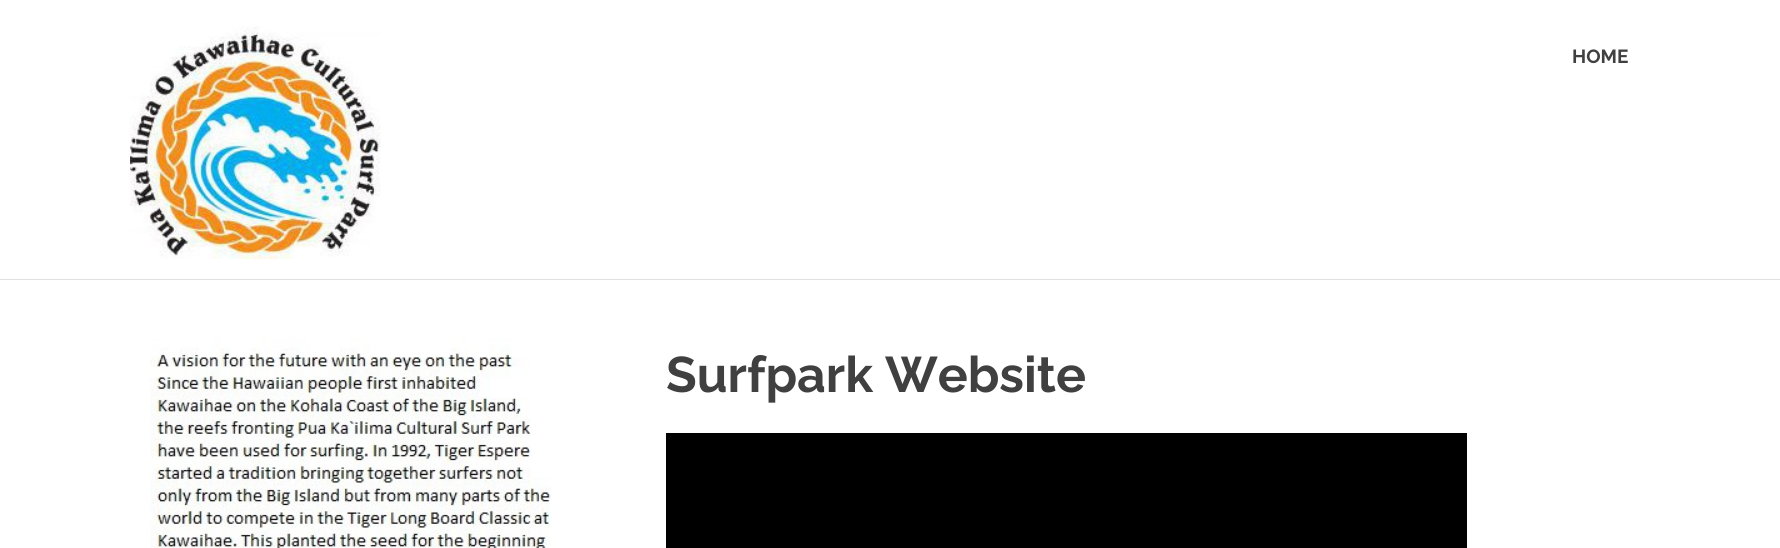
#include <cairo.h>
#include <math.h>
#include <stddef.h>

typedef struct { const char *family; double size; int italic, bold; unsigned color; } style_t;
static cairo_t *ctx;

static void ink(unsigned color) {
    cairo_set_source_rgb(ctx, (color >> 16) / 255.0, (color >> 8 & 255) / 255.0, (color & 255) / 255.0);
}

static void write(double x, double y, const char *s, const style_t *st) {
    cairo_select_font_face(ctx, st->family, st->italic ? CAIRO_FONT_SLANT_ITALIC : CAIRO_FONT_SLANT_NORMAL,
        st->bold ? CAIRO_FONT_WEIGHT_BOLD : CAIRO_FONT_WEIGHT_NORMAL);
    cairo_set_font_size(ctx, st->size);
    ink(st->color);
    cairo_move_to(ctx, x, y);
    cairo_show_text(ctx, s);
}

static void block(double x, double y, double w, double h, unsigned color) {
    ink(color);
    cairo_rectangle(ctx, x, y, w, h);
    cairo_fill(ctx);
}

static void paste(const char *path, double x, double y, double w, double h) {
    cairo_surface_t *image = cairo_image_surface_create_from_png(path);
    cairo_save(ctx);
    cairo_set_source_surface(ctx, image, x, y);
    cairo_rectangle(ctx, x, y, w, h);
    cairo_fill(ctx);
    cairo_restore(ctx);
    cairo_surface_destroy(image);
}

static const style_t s1 = {"Raleway", 19, 0, 1, 0x404040};
static const style_t s2 = {"Raleway", 50, 0, 1, 0x404040};

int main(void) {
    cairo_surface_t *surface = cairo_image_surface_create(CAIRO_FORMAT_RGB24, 1780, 548);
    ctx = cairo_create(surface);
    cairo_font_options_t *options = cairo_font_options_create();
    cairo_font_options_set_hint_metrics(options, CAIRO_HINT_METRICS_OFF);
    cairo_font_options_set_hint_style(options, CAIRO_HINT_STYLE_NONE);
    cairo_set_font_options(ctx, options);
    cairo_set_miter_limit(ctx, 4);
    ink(0xffffff);
    cairo_paint(ctx);
    block(0, 279, 1780, 1, 0xe0e0e0);
    paste("pic1.png", 130, 26, 251, 233);
    write(1572, 63, "HOME", &s1);
    paste("pic2.png", 150, 338, 401, 210);
    write(666, 392, "Surfpark Website", &s2);
    block(666, 433, 801, 115, 0x000000);
    cairo_surface_write_to_png(surface, "screenshot.png");
    cairo_font_options_destroy(options);
    cairo_destroy(ctx);
    cairo_surface_destroy(surface);
    return 0;
}
